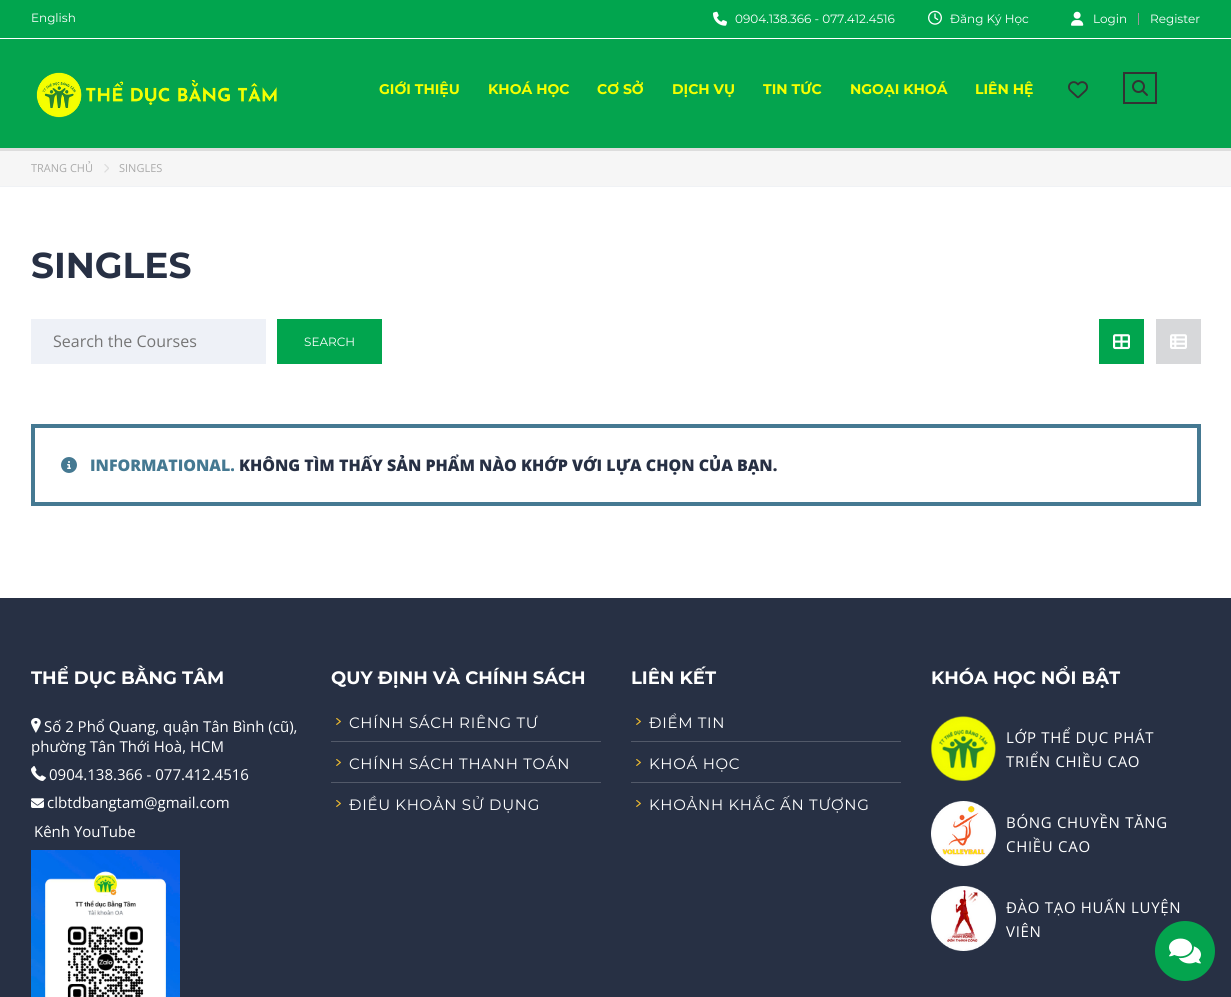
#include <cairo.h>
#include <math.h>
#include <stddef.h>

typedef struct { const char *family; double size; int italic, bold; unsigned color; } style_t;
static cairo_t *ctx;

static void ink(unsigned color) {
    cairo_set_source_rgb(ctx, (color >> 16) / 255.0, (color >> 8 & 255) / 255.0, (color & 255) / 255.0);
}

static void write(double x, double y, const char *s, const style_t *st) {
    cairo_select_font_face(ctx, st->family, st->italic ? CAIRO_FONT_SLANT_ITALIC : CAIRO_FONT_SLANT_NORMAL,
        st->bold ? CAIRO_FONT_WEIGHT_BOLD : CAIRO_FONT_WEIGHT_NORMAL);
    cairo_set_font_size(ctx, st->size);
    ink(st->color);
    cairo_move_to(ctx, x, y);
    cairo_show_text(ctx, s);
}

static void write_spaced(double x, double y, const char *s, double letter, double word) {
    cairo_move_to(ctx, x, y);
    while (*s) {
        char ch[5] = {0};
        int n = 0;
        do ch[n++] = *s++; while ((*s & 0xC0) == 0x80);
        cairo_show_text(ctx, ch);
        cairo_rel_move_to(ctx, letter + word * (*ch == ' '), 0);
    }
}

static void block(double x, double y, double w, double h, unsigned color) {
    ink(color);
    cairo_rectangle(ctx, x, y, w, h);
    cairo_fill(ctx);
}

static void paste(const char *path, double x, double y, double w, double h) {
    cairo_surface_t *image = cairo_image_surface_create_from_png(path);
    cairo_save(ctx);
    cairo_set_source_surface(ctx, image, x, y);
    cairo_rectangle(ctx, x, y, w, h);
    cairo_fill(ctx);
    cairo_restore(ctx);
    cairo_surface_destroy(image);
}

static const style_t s1 = {"Montserrat", 12, 0, 0, 0xffffff};
static const style_t s2 = {"Montserrat", 14, 0, 1, 0xf5ff00};
static const style_t s3 = {"Open Sans", 11, 0, 0, 0xaaaaaa};
static const style_t s4 = {"Montserrat", 36, 0, 1, 0x273044};
static const style_t s5 = {"Open Sans", 16, 0, 0, 0x757575};
static const style_t s6 = {"Open Sans ExtraBold", 16, 0, 0, 0x457992};
static const style_t s7 = {"Open Sans ExtraBold", 16, 0, 0, 0x273044};
static const style_t s8 = {"Montserrat", 18, 0, 1, 0xffffff};
static const style_t s9 = {"Open Sans", 15, 0, 0, 0xffffff};

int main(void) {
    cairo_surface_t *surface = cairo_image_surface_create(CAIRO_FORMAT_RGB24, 1231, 997);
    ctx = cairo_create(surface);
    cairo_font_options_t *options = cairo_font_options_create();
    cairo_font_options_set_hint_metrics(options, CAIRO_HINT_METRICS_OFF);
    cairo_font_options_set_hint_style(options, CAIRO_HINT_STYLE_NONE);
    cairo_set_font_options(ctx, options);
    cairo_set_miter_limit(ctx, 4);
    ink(0xffffff);
    cairo_paint(ctx);
    block(0, 0, 1231, 38, 0x01a54e);
    write(31, 22, "English", &s1);
    paste("pic1.png", 713, 11, 14, 15);
    write(735, 23, "0904.138.366 - 077.412.4516", &s1);
    paste("pic2.png", 928, 10, 14, 15);
    write(950, 23, "Đăng Ký Học", &s1);
    paste("pic3.png", 1071, 11, 13, 15);
    write(1093, 23, "Login", &s1);
    block(1138, 13, 1, 12, 0x9a9a9a);
    write(1150, 23, "Register", &s1);
    block(0, 39, 1231, 109, 0x04a44e);
    paste("pic4.png", 36, 72, 241, 46);
    write(379, 94, "GIỚI THIỆU", &s2);
    write(488, 94, "KHOÁ HỌC", &s2);
    write(597, 94, "CƠ SỞ", &s2);
    write(672, 94, "DỊCH VỤ", &s2);
    write(763, 94, "TIN TỨC", &s2);
    write(850, 94, "NGOẠI KHOÁ", &s2);
    write(975, 94, "LIÊN HỆ", &s2);
    paste("pic5.png", 1068, 81, 20, 18);
    cairo_rectangle(ctx, 1124, 73, 32, 30);
    ink(0x333333);
    cairo_stroke(ctx);
    paste("pic6.png", 1132, 80, 16, 16);
    block(0, 148, 1231, 3, 0xdddddd);
    block(0, 151, 1231, 35, 0xf6f6f6);
    block(0, 186, 1231, 1, 0xf0f2f5);
    write(31, 172, "TRANG CHỦ", &s3);
    paste("pic7.png", 104, 164, 5, 9);
    write(119, 172, "SINGLES", &s3);
    write(31, 278, "SINGLES", &s4);
    block(31, 319, 235, 45, 0xeef1f7);
    write(53, 347, "Search the Courses", &s5);
    block(277, 319, 105, 45, 0x01a54e);
    write(304, 346, "SEARCH", &s1);
    block(1099, 319, 45, 45, 0x01a54e);
    paste("pic8.png", 1113, 334, 17, 16);
    block(1156, 319, 45, 45, 0xd7d8da);
    paste("pic9.png", 1170, 334, 17, 15);
    cairo_rectangle(ctx, 33, 426, 1166, 78);
    ink(0x457992);
    cairo_set_line_width(ctx, 4);
    cairo_stroke(ctx);
    paste("pic10.png", 61, 457, 16, 16);
    write(90, 471, "INFORMATIONAL.", &s6);
    write(239, 471, "KHÔNG TÌM THẤY SẢN PHẨM NÀO KHỚP VỚI LỰA CHỌN CỦA BẠN.", &s7);
    block(0, 598, 1231, 399, 0x273044);
    write(31, 684, "THỂ DỤC BẰNG TÂM", &s8);
    paste("pic11.png", 31, 717, 10, 16);
    write(44, 732, "Số 2 Phổ Quang, quận Tân Bình (cũ),", &s9);
    write(31, 752, "phường Tân Thới Hoà, HCM", &s9);
    paste("pic12.png", 31, 766, 15, 15);
    write(49, 780, "0904.138.366 - 077.412.4516", &s9);
    paste("pic13.png", 31, 798, 13, 10);
    write(47, 808, "clbtdbangtam@gmail.com", &s9);
    write(34, 837, "Kênh YouTube", &s9);
    paste("pic14.png", 31, 850, 149, 147);
    write(331, 684, "QUY ĐỊNH VÀ CHÍNH SÁCH", &s8);
    block(331, 741, 270, 1, 0x525969);
    paste("pic15.png", 336, 718, 5, 7);
    cairo_select_font_face(ctx, "Montserrat", CAIRO_FONT_SLANT_NORMAL, CAIRO_FONT_WEIGHT_NORMAL);
    cairo_set_font_size(ctx, 15);
    ink(0xffffff);
    write_spaced(349, 728, "CHÍNH SÁCH RIÊNG TƯ", 0.7, 0);
    block(331, 782, 270, 1, 0x525969);
    paste("pic15.png", 336, 759, 5, 7);
    ink(0xffffff);
    write_spaced(349, 769, "CHÍNH SÁCH THANH TOÁN", 0.7, 0);
    paste("pic15.png", 336, 800, 5, 7);
    write_spaced(349, 810, "ĐIỀU KHOẢN SỬ DỤNG", 0.7, 0);
    write(631, 684, "LIÊN KẾT", &s8);
    block(631, 741, 270, 1, 0x525969);
    paste("pic15.png", 636, 718, 5, 7);
    cairo_select_font_face(ctx, "Montserrat", CAIRO_FONT_SLANT_NORMAL, CAIRO_FONT_WEIGHT_NORMAL);
    cairo_set_font_size(ctx, 15);
    ink(0xffffff);
    write_spaced(649, 728, "ĐIỂM TIN", 0.7, 0);
    block(631, 782, 270, 1, 0x525969);
    paste("pic15.png", 636, 759, 5, 7);
    ink(0xffffff);
    write_spaced(649, 769, "KHOÁ HỌC", 0.7, 0);
    paste("pic15.png", 636, 800, 5, 7);
    write_spaced(649, 810, "KHOẢNH KHẮC ẤN TƯỢNG", 0.7, 0);
    write(931, 684, "KHÓA HỌC NỔI BẬT", &s8);
    paste("pic16.png", 931, 716, 65, 65);
    cairo_select_font_face(ctx, "Open Sans", CAIRO_FONT_SLANT_NORMAL, CAIRO_FONT_WEIGHT_NORMAL);
    cairo_set_font_size(ctx, 15);
    write_spaced(1006, 743, "LỚP THỂ DỤC PHÁT", 0.7, 0);
    write_spaced(1006, 767, "TRIỂN CHIỀU CAO", 0.7, 0);
    paste("pic17.png", 931, 801, 65, 65);
    write_spaced(1006, 828, "BÓNG CHUYỀN TĂNG", 0.7, 0);
    write_spaced(1006, 852, "CHIỀU CAO", 0.7, 0);
    paste("pic18.png", 931, 886, 65, 65);
    write_spaced(1006, 913, "ĐÀO TẠO HUẤN LUYỆN", 0.7, 0);
    write_spaced(1006, 937, "VIÊN", 0.7, 0);
    ink(0x04a44e);
    cairo_new_path(ctx);
    cairo_arc(ctx, 1185, 951, 30, 0, 2 * M_PI);
    cairo_fill(ctx);
    paste("pic19.png", 1169, 938, 32, 26);
    cairo_surface_write_to_png(surface, "screenshot.png");
    cairo_font_options_destroy(options);
    cairo_destroy(ctx);
    cairo_surface_destroy(surface);
    return 0;
}
